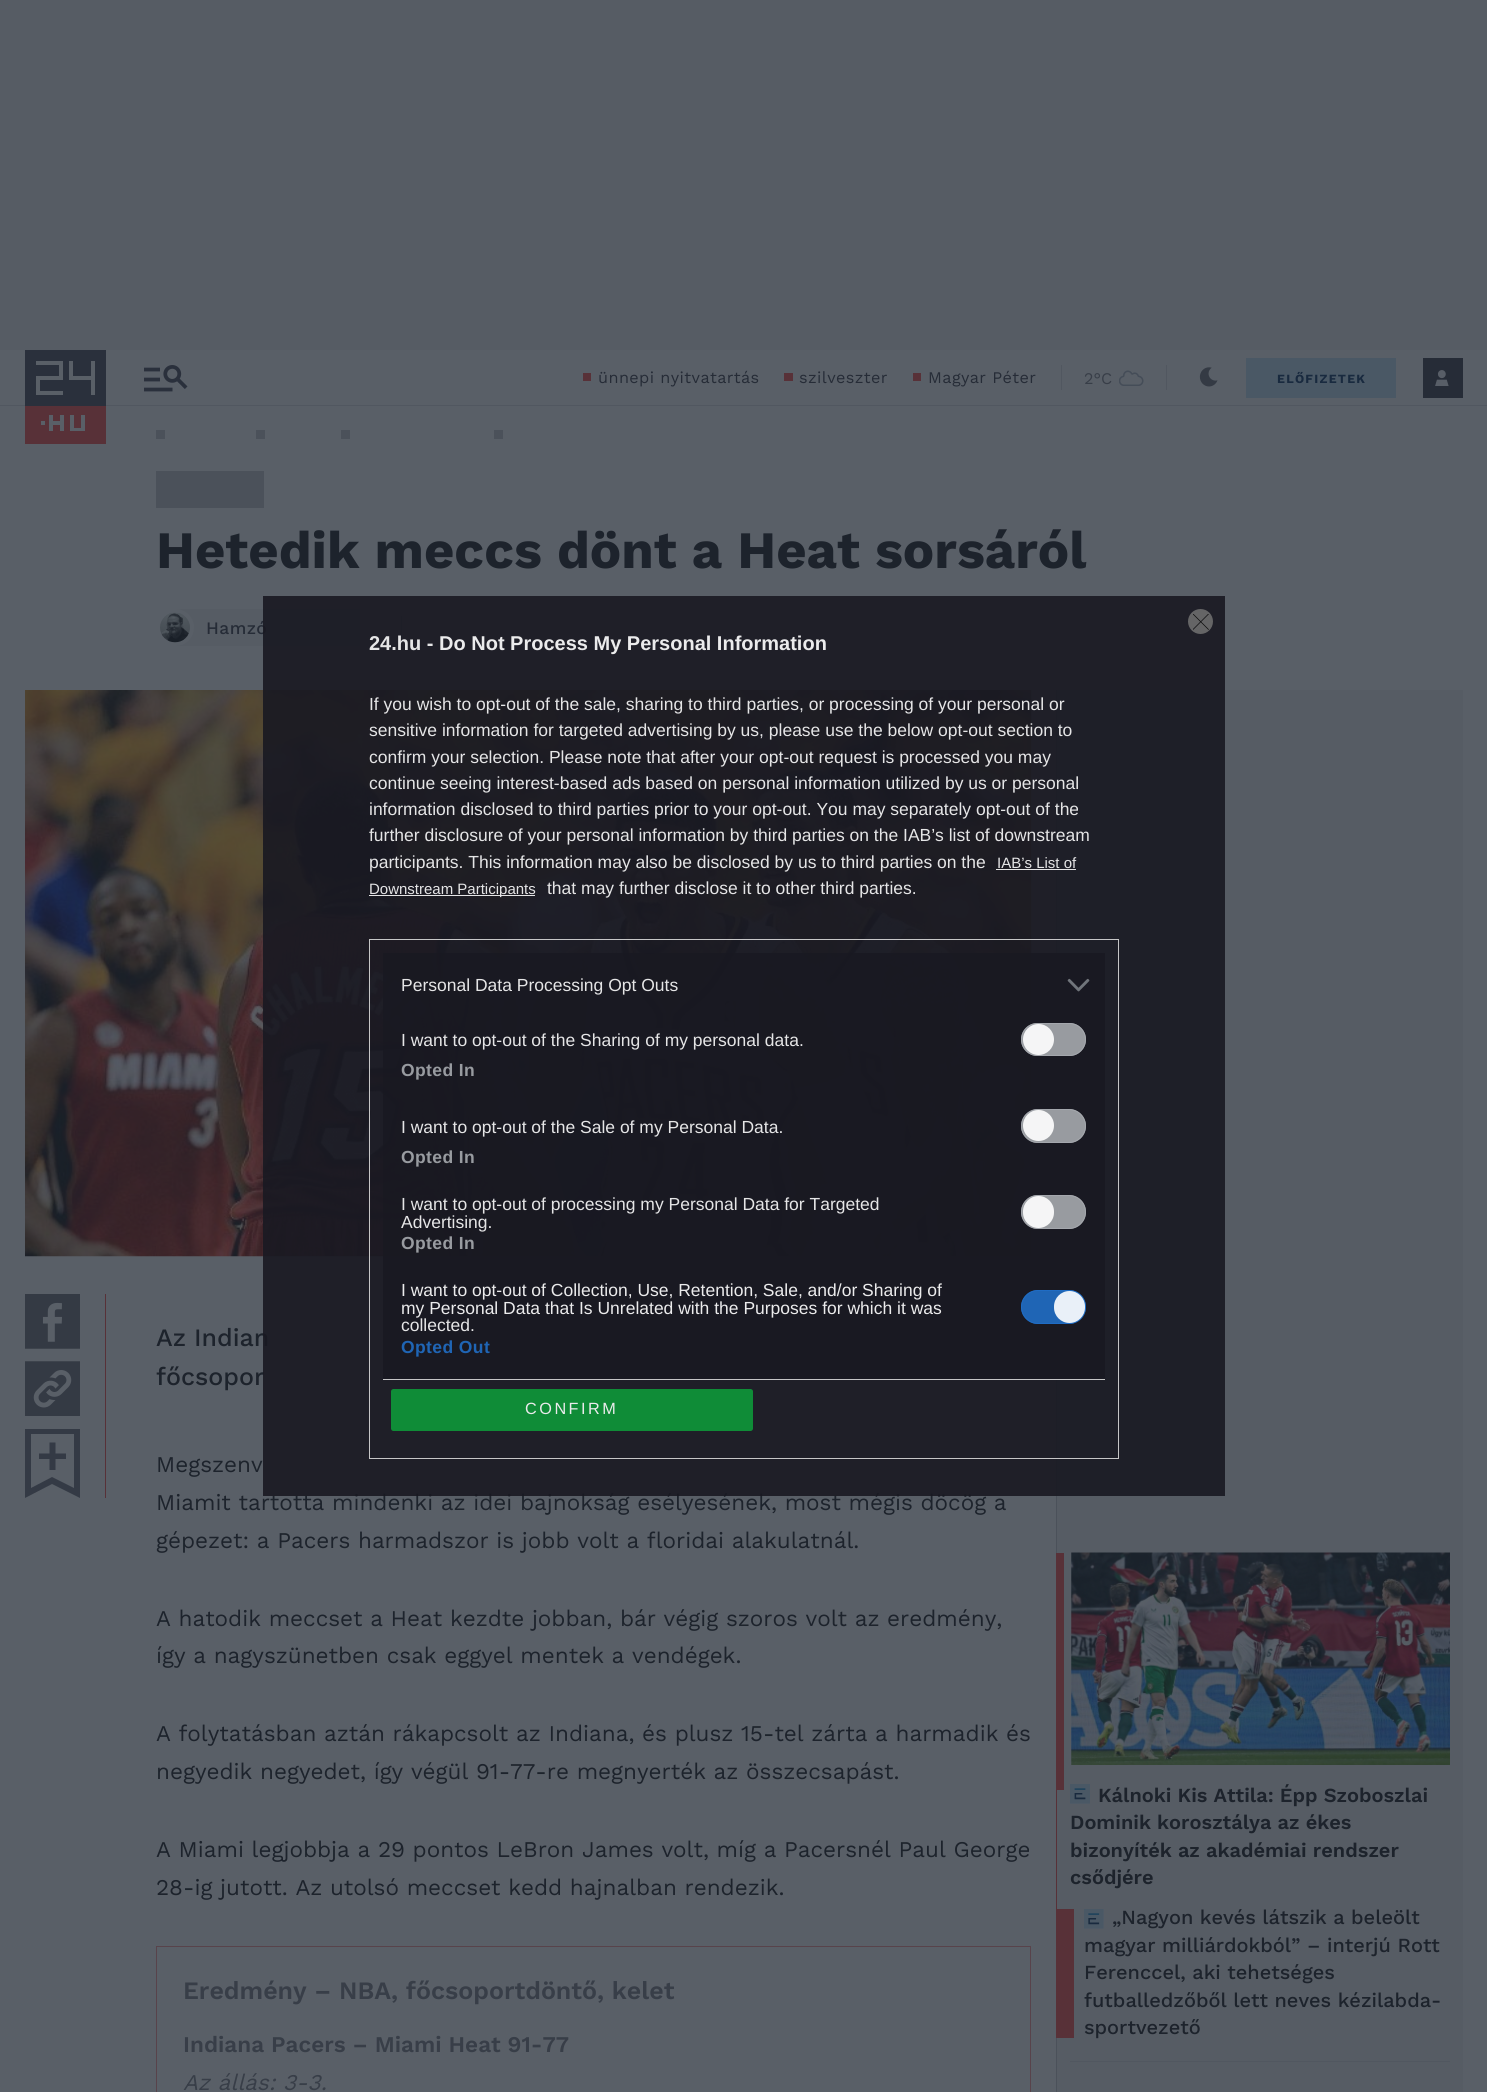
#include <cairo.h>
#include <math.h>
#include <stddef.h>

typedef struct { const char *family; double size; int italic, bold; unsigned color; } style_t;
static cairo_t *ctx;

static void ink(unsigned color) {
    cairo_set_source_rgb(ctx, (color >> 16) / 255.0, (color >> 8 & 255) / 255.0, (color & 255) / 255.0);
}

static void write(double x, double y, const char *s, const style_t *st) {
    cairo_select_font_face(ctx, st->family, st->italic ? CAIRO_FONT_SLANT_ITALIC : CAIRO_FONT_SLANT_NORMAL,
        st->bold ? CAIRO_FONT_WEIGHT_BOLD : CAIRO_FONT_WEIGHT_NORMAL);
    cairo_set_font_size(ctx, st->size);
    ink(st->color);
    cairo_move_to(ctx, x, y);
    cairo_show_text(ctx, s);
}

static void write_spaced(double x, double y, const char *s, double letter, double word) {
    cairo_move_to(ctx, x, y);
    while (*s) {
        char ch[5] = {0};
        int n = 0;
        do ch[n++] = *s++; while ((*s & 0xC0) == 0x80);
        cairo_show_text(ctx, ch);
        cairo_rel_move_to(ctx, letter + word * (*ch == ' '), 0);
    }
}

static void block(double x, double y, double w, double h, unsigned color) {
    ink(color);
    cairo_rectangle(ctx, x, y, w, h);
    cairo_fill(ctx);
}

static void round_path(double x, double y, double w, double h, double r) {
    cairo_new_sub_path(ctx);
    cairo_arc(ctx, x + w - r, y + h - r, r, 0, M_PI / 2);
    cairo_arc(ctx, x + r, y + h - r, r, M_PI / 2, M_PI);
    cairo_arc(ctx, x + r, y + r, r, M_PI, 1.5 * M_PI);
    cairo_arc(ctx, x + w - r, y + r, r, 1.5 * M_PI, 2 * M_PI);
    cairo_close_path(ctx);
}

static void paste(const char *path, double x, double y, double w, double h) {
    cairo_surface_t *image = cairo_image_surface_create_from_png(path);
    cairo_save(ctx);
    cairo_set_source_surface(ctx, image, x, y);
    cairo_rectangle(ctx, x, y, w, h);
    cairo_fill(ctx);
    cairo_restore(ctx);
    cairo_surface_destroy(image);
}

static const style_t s1 = {"Work Sans", 16.25, 0, 0, 0x383e48};
static const style_t s2 = {"Work Sans", 52.5, 0, 1, 0x1d232c};
static const style_t s3 = {"Work Sans Medium", 25, 0, 0, 0x1d232c};
static const style_t s4 = {"Work Sans", 22.5, 0, 0, 0x1d232c};
static const style_t s5 = {"Work Sans SemiBold", 25, 0, 0, 0x383e48};
static const style_t s6 = {"Work Sans SemiBold", 22.5, 0, 0, 0x383e48};
static const style_t s7 = {"Work Sans", 22.5, 1, 0, 0x383e48};
static const style_t s8 = {"Work Sans SemiBold", 20, 0, 0, 0x1d232c};
static const style_t s9 = {"Work Sans Medium", 20, 0, 0, 0x1d232c};
static const style_t s10 = {"Liberation Sans", 20, 0, 1, 0xe5e5e6};
static const style_t s11 = {"Liberation Sans", 20, 0, 1, 0xebebec};
static const style_t s12 = {"Liberation Sans", 17.5, 0, 0, 0xe5e5e6};
static const style_t s13 = {"Liberation Sans", 15, 0, 0, 0xe5e5e6};
static const style_t s14 = {"Liberation Sans", 17.5, 0, 0, 0xebebec};

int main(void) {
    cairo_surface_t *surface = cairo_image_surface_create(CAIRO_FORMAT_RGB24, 1487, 2092);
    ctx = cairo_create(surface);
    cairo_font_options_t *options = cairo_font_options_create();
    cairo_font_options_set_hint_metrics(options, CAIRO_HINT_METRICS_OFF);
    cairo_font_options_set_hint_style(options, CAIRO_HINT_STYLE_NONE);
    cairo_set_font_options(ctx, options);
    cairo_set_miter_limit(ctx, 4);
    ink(0x595f67);
    cairo_paint(ctx);
    block(0, 0, 1487, 350, 0x565c64);
    block(25, 406, 81, 38, 0x583138);
    block(0, 405, 1487, 1, 0x515760);
    block(25, 350, 81, 56, 0x2a303c);
    block(91, 361, 4, 34, 0x595f67);
    block(36, 361, 27, 4, 0x595f67);
    block(59, 361, 4, 19, 0x595f67);
    block(36, 376, 27, 4, 0x595f67);
    block(69, 376, 26, 4, 0x595f67);
    block(36, 376, 4, 19, 0x595f67);
    block(36, 391, 27, 4, 0x595f67);
    block(69, 361, 4, 19, 0x595f67);
    block(70, 415, 4, 16, 0x595f67);
    block(70, 428, 15, 3, 0x595f67);
    block(81, 415, 4, 16, 0x595f67);
    cairo_new_path(ctx);
    cairo_move_to(ctx, 45, 421);
    cairo_line_to(ctx, 41, 421);
    cairo_line_to(ctx, 41, 425);
    cairo_line_to(ctx, 45, 425);
    cairo_close_path(ctx);
    cairo_fill(ctx);
    block(49, 415, 4, 16, 0x595f67);
    block(51, 421, 10, 4, 0x595f67);
    block(60, 415, 4, 16, 0x595f67);
    paste("pic1.png", 144, 365, 44, 27);
    block(583, 373, 8, 8, 0x583138);
    cairo_select_font_face(ctx, "Work Sans", CAIRO_FONT_SLANT_NORMAL, CAIRO_FONT_WEIGHT_NORMAL);
    cairo_set_font_size(ctx, 16.25);
    ink(0x262c37);
    write_spaced(598, 383, "ünnepi nyitvatartás", 0.4, 0);
    block(784, 373, 9, 8, 0x583138);
    ink(0x262c37);
    write_spaced(799, 383, "szilveszter", 0.4, 0);
    block(913, 373, 8, 8, 0x583138);
    ink(0x262c37);
    write_spaced(928, 383, "Magyar Péter", 0.4, 0);
    block(1166, 365, 1, 25, 0x515760);
    block(1061, 365, 1, 25, 0x515760);
    write(1084, 384, "2°C", &s1);
    paste("pic2.png", 1119, 370, 25, 16);
    paste("pic3.png", 1199, 367, 19, 20);
    block(1246, 358, 150, 40, 0x4a5865);
    cairo_select_font_face(ctx, "Work Sans", CAIRO_FONT_SLANT_NORMAL, CAIRO_FONT_WEIGHT_BOLD);
    cairo_set_font_size(ctx, 12.5);
    ink(0x192a3f);
    write_spaced(1277, 383, "ELŐFIZETEK", 1.25, 0);
    block(1423, 358, 40, 40, 0x262c37);
    paste("pic4.png", 1435, 370, 14, 16);
    block(156, 430, 9, 9, 0x4b515a);
    block(256, 430, 9, 9, 0x4b515a);
    block(341, 430, 9, 9, 0x4b515a);
    block(494, 430, 9, 9, 0x4b515a);
    block(156, 471, 108, 37, 0x4b515a);
    write(156, 568, "Hetedik meccs dönt a Heat sorsáról", &s2);
    block(176, 609, 184, 37, 0x565c64);
    round_path(158, 611, 34, 33, 16.5);
    ink(0x595f67);
    cairo_set_line_width(ctx, 4);
    cairo_stroke(ctx);
    paste("pic5.png", 160, 612, 30, 31);
    cairo_select_font_face(ctx, "Work Sans Medium", CAIRO_FONT_SLANT_NORMAL, CAIRO_FONT_WEIGHT_NORMAL);
    cairo_set_font_size(ctx, 17.5);
    ink(0x262c37);
    write_spaced(206, 634, "Hamzó", 0.4, 0);
    block(401, 616, 1, 25, 0x4b515a);
    paste("pic6.png", 25, 690, 1007, 567);
    block(105, 1294, 1, 204, 0x583138);
    paste("pic7.png", 25, 1294, 55, 55);
    paste("pic8.png", 25, 1361, 55, 55);
    ink(0x343a45);
    cairo_new_path(ctx);
    cairo_move_to(ctx, 80, 1429);
    cairo_line_to(ctx, 80, 1498);
    cairo_line_to(ctx, 52, 1484);
    cairo_line_to(ctx, 25, 1498);
    cairo_line_to(ctx, 25, 1429);
    cairo_close_path(ctx);
    cairo_move_to(ctx, 31, 1488);
    cairo_line_to(ctx, 52, 1477);
    cairo_line_to(ctx, 74, 1488);
    cairo_line_to(ctx, 74, 1434);
    cairo_line_to(ctx, 31, 1434);
    cairo_close_path(ctx);
    cairo_fill(ctx);
    cairo_new_path(ctx);
    cairo_move_to(ctx, 49.5, 1467);
    cairo_line_to(ctx, 49.5, 1470);
    cairo_line_to(ctx, 55.5, 1470);
    cairo_line_to(ctx, 55.5, 1459);
    cairo_line_to(ctx, 66, 1459);
    cairo_line_to(ctx, 66, 1453.5);
    cairo_line_to(ctx, 55.5, 1453.5);
    cairo_line_to(ctx, 55.5, 1442.5);
    cairo_line_to(ctx, 49.5, 1442.5);
    cairo_line_to(ctx, 49.5, 1453.5);
    cairo_line_to(ctx, 39, 1453.5);
    cairo_line_to(ctx, 39, 1459);
    cairo_line_to(ctx, 49.5, 1459);
    cairo_close_path(ctx);
    cairo_fill(ctx);
    write(156, 1346, "Az Indian", &s3);
    write(156, 1385, "főcsopor", &s3);
    write(156, 1472, "Megszenv", &s4);
    write(156, 1510, "Miamit tartotta mindenki az idei bajnokság esélyesének, most mégis döcög a", &s4);
    write(156, 1548, "gépezet: a Pacers harmadszor is jobb volt a floridai alakulatnál.", &s4);
    write(156, 1626, "A hatodik meccset a Heat kezdte jobban, bár végig szoros volt az eredmény,", &s4);
    write(156, 1663, "így a nagyszünetben csak eggyel mentek a vendégek.", &s4);
    write(156, 1741, "A folytatásban aztán rákapcsolt az Indiana, és plusz 15-tel zárta a harmadik és", &s4);
    write(156, 1779, "negyedik negyedet, így végül 91-77-re megnyerték az összecsapást.", &s4);
    write(156, 1857, "A Miami legjobbja a 29 pontos LeBron James volt, míg a Pacersnél Paul George", &s4);
    write(156, 1895, "28-ig jutott. Az utolsó meccset kedd hajnalban rendezik.", &s4);
    cairo_rectangle(ctx, 156.5, 1946.5, 874, 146);
    ink(0x58434b);
    cairo_set_line_width(ctx, 1);
    cairo_stroke(ctx);
    write(183, 1999, "Eredmény – NBA, főcsoportdöntő, kelet", &s5);
    write(183, 2052, "Indiana Pacers – Miami Heat 91-77", &s6);
    write(183, 2090, "Az állás: 3-3.", &s7);
    block(1057, 690, 406, 1402, 0x565c64);
    block(1056, 690, 1, 1402, 0x4b515a);
    block(1057, 1553, 7, 237, 0x583138);
    paste("pic9.png", 1071, 1552, 379, 213);
    block(1056, 1553, 1, 356, 0x583138);
    paste("pic10.png", 1070, 1784, 20, 20);
    write(1098, 1802, "Kálnoki Kis Attila: Épp Szoboszlai", &s8);
    write(1070, 1829, "Dominik korosztálya az ékes", &s8);
    write(1070, 1857, "bizonyíték az akadémiai rendszer", &s8);
    write(1070, 1884, "csődjére", &s8);
    block(1070, 2061, 380, 1, 0x515760);
    block(1056, 1909, 18, 129, 0x583138);
    paste("pic11.png", 1084, 1909, 20, 20);
    write(1112, 1924, "„Nagyon kevés látszik a beleölt", &s9);
    write(1084, 1952, "magyar milliárdokból” – interjú Rott", &s9);
    write(1084, 1979, "Ferenccel, aki tehetséges", &s9);
    write(1084, 2007, "futballedzőből lett neves kézilabda-", &s9);
    write(1084, 2034, "sportvezető", &s9);
    cairo_set_source_rgba(ctx, 0.098, 0.098, 0.133, 0.9);
    cairo_rectangle(ctx, 263, 596, 962, 900);
    cairo_fill(ctx);
    ink(0x656566);
    cairo_arc(ctx, 1200.5, 621.5, 12.5, 0, 2 * M_PI);
    cairo_fill(ctx);
    cairo_save(ctx);
    cairo_rectangle(ctx, 1193, 614, 16, 16);
    cairo_clip(ctx);
    cairo_new_path(ctx);
    cairo_move_to(ctx, 1193, 614);
    cairo_line_to(ctx, 1208.5, 629.5);
    cairo_move_to(ctx, 1208.5, 614);
    cairo_line_to(ctx, 1193, 629.5);
    ink(0x09090a);
    cairo_set_line_width(ctx, 0.7);
    cairo_set_line_cap(ctx, CAIRO_LINE_CAP_ROUND);
    cairo_set_line_join(ctx, CAIRO_LINE_JOIN_ROUND);
    cairo_stroke(ctx);
    cairo_restore(ctx);
    write(369, 650, "24.hu -", &s10);
    write(439, 650, "Do Not Process My Personal Information", &s11);
    write(369, 710, "If you wish to opt-out of the sale, sharing to third parties, or processing of your personal or", &s12);
    write(369, 736, "sensitive information for targeted advertising by us, please use the below opt-out section to", &s12);
    write(369, 763, "confirm your selection. Please note that after your opt-out request is processed you may", &s12);
    write(369, 789, "continue seeing interest-based ads based on personal information utilized by us or personal", &s12);
    write(369, 815, "information disclosed to third parties prior to your opt-out. You may separately opt-out of the", &s12);
    write(369, 841, "further disclosure of your personal information by third parties on the IAB’s list of downstream", &s12);
    write(369, 868, "participants. This information may also be disclosed by us to third parties on the", &s12);
    write(997, 868, "IAB’s List of", &s13);
    cairo_set_source_rgba(ctx, 0.984, 0.984, 0.984, 0.9);
    cairo_rectangle(ctx, 996, 869, 80, 1);
    cairo_fill(ctx);
    cairo_rectangle(ctx, 369, 895, 166, 1);
    cairo_fill(ctx);
    write(369, 894, "Downstream Participants", &s13);
    write(547, 894, "that may further disclose it to other third parties.", &s12);
    cairo_rectangle(ctx, 369.5, 939.5, 749, 519);
    cairo_set_source_rgba(ctx, 0.847, 0.847, 0.847, 0.9);
    cairo_stroke(ctx);
    cairo_set_source_rgba(ctx, 0.098, 0.098, 0.133, 0.9);
    cairo_rectangle(ctx, 383, 953, 722, 426);
    cairo_fill(ctx);
    block(383, 1379, 722, 1, 0xc5c5c6);
    write(401, 991, "Personal Data Processing Opt Outs", &s12);
    paste("pic12.png", 1067, 978, 23, 14);
    write(401, 1046, "I want to opt-out of the Sharing of my personal data.", &s12);
    ink(0x989ba0);
    round_path(1021, 1023, 65, 33, 16.5);
    cairo_fill(ctx);
    round_path(1021.5, 1023.5, 64, 32, 16);
    cairo_set_source_rgba(ctx, 0.651, 0.663, 0.682, 0.9);
    cairo_stroke(ctx);
    ink(0xf5f5f6);
    cairo_arc(ctx, 1038.5, 1039.5, 15.5, 0, 2 * M_PI);
    cairo_fill(ctx);
    cairo_select_font_face(ctx, "Liberation Sans", CAIRO_FONT_SLANT_NORMAL, CAIRO_FONT_WEIGHT_BOLD);
    ink(0x989ba0);
    write_spaced(401, 1076, "Opted In", 0.4, 0);
    write(401, 1133, "I want to opt-out of the Sale of my Personal Data.", &s12);
    ink(0x989ba0);
    round_path(1021, 1109, 65, 34, 17);
    cairo_fill(ctx);
    round_path(1021.5, 1109.5, 64, 33, 16.5);
    cairo_set_source_rgba(ctx, 0.651, 0.663, 0.682, 0.9);
    cairo_stroke(ctx);
    cairo_set_source_rgba(ctx, 1, 1, 1, 0.9);
    cairo_arc(ctx, 1038.5, 1125.5, 15.5, 0, 2 * M_PI);
    cairo_fill(ctx);
    cairo_select_font_face(ctx, "Liberation Sans", CAIRO_FONT_SLANT_NORMAL, CAIRO_FONT_WEIGHT_BOLD);
    ink(0x989ba0);
    write_spaced(401, 1163, "Opted In", 0.4, 0);
    write(401, 1210, "I want to opt-out of processing my Personal Data for Targeted", &s12);
    write(401, 1228, "Advertising.", &s12);
    ink(0x989ba0);
    round_path(1021, 1195, 65, 34, 17);
    cairo_fill(ctx);
    round_path(1021.5, 1195.5, 64, 33, 16.5);
    cairo_set_source_rgba(ctx, 0.651, 0.663, 0.682, 0.9);
    cairo_stroke(ctx);
    cairo_set_source_rgba(ctx, 1, 1, 1, 0.9);
    round_path(1023, 1196, 31, 32, 15.5);
    cairo_fill(ctx);
    cairo_select_font_face(ctx, "Liberation Sans", CAIRO_FONT_SLANT_NORMAL, CAIRO_FONT_WEIGHT_BOLD);
    ink(0x989ba0);
    write_spaced(401, 1249, "Opted In", 0.4, 0);
    write(401, 1296, "I want to opt-out of Collection, Use, Retention, Sale, and/or Sharing of", &s14);
    write(401, 1314, "my Personal Data that Is Unrelated with the Purposes for which it was", &s14);
    write(401, 1331, "collected.", &s12);
    ink(0x1f65b5);
    round_path(1021, 1290, 65, 34, 17);
    cairo_fill(ctx);
    round_path(1021.5, 1290.5, 64, 33, 16.5);
    cairo_set_source_rgba(ctx, 0.125, 0.427, 0.773, 0.9);
    cairo_stroke(ctx);
    cairo_set_source_rgba(ctx, 1, 1, 1, 0.9);
    round_path(1054, 1291, 31, 32, 15.5);
    cairo_fill(ctx);
    cairo_select_font_face(ctx, "Liberation Sans", CAIRO_FONT_SLANT_NORMAL, CAIRO_FONT_WEIGHT_BOLD);
    ink(0x1f65b5);
    write_spaced(401, 1353, "Opted Out", 0.4, 0);
    cairo_set_source_rgba(ctx, 0.055, 0.596, 0.224, 0.9);
    round_path(391, 1389, 362, 42, 2.5);
    cairo_fill(ctx);
    cairo_select_font_face(ctx, "Liberation Sans", CAIRO_FONT_SLANT_NORMAL, CAIRO_FONT_WEIGHT_NORMAL);
    cairo_set_font_size(ctx, 16.25);
    ink(0xebebec);
    write_spaced(525, 1414, "CONFIRM", 2.5, 0);
    cairo_surface_write_to_png(surface, "screenshot.png");
    cairo_font_options_destroy(options);
    cairo_destroy(ctx);
    cairo_surface_destroy(surface);
    return 0;
}
